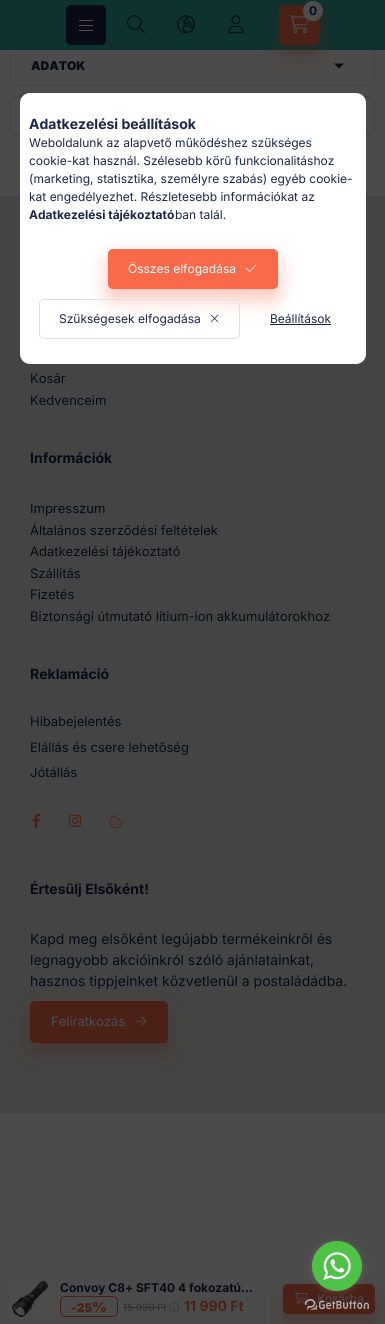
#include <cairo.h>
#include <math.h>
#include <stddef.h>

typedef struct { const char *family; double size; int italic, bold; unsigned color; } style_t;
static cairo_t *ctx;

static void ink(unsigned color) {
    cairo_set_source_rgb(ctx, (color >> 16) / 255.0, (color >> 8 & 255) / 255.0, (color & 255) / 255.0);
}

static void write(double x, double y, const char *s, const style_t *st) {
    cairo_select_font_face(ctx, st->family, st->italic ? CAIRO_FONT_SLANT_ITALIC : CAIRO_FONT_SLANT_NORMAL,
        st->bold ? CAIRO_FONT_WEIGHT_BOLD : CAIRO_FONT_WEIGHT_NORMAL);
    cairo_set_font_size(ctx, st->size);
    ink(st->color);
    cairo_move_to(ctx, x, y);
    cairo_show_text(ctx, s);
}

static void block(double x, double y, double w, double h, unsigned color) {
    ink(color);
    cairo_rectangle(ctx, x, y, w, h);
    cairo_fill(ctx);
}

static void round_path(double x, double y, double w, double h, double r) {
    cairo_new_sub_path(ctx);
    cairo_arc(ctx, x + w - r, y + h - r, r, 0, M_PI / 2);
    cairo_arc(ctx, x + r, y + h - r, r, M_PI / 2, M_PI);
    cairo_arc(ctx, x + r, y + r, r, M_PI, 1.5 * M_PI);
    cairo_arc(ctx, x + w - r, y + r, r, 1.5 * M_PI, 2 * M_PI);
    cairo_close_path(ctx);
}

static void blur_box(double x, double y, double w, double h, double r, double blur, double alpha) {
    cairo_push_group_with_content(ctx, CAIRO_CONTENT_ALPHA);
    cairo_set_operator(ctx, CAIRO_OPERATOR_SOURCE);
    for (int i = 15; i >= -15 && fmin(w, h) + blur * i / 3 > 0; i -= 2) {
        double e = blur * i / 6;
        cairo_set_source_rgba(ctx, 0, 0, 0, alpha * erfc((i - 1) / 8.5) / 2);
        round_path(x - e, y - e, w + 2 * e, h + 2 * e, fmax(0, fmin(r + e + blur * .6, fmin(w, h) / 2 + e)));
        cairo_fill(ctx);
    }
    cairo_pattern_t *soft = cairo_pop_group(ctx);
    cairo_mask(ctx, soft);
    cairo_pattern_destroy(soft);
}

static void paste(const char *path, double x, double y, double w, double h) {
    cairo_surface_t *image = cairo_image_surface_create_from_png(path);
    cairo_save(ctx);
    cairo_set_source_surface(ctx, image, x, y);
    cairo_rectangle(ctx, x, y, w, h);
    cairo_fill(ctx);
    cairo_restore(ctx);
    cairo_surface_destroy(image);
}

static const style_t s1 = {"Inter", 12, 0, 1, 0x080b16};
static const style_t s2 = {"Inter Black", 12, 0, 0, 0x080b16};
static const style_t s3 = {"Inter Black", 12, 0, 0, 0x4b2016};
static const style_t s4 = {"Inter Black", 14, 0, 0, 0x4b2016};
static const style_t s5 = {"Inter", 10, 0, 0, 0x2e2e2e};
static const style_t s6 = {"Inter", 14, 0, 1, 0x4b2016};
static const style_t s7 = {"Inter", 12, 0, 0, 0x4d4d4d};
static const style_t s8 = {"Inter", 13, 0, 0, 0x080b16};
static const style_t s9 = {"Inter", 14, 0, 1, 0x080b16};
static const style_t s10 = {"Inter", 14, 0, 0, 0x080b16};
static const style_t s11 = {"Inter", 13, 0, 0, 0x4d4d4d};
static const style_t s12 = {"Inter", 14, 0, 1, 0x1c264a};
static const style_t s13 = {"Inter", 12, 0, 0, 0x1c264a};
static const style_t s14 = {"Inter", 12, 0, 1, 0x1c264a};
static const style_t s15 = {"Inter", 12, 0, 0, 0xffffff};

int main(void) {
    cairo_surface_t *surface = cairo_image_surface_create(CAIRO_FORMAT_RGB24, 385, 1324);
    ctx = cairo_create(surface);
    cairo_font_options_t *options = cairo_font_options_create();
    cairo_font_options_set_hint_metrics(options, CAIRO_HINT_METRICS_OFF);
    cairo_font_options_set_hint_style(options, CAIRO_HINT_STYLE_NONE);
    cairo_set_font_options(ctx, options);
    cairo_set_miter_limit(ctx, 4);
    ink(0x4b4b4b);
    cairo_paint(ctx);
    round_path(10.5, 46.5, 364, 39, 4.5);
    ink(0x444444);
    cairo_set_line_width(ctx, 1);
    cairo_stroke(ctx);
    block(0, 0, 385, 50, 0x0e322f);
    ink(0x080b16);
    round_path(66, 5, 40, 40, 5);
    cairo_fill(ctx);
    block(79, 20, 14, 1, 0x4d4d4d);
    block(79, 25, 14, 1, 0x4d4d4d);
    block(79, 30, 14, 1, 0x4d4d4d);
    ink(0x080b16);
    cairo_new_path(ctx);
    cairo_move_to(ctx, 334, 63.5);
    cairo_line_to(ctx, 344, 63.5);
    cairo_line_to(ctx, 339, 68.5);
    cairo_close_path(ctx);
    cairo_fill(ctx);
    ink(0x4b2016);
    blur_box(279, 15, 40, 40, 5, 10, 0.4);
    ink(0x4b2016);
    round_path(279, 5, 40, 40, 5);
    cairo_fill(ctx);
    paste("pic1.png", 289, 15, 20, 19);
    ink(0x4b2016);
    blur_box(303, 6, 20, 20, 10, 5, 0.4);
    ink(0x4d4d4d);
    cairo_arc(ctx, 313, 11, 10, 0, 2 * M_PI);
    cairo_fill(ctx);
    write(309, 15, "0", &s1);
    paste("pic2.png", 127, 15, 18, 19);
    paste("pic3.png", 177, 15, 18, 19);
    paste("pic4.png", 228, 15, 16, 19);
    write(31, 70, "ADATOK", &s2);
    round_path(10.5, 96.5, 364, 39, 4.5);
    ink(0x444444);
    cairo_stroke(ctx);
    paste("pic5.png", 10, 1279, 40, 39);
    write(60, 1292, "Convoy C8+ SFT40 4 fokozatú…", &s1);
    round_path(60.5, 1296.5, 57, 20, 4.5);
    ink(0x4b2016);
    cairo_stroke(ctx);
    write(71, 1312, "-25", &s3);
    write(92, 1312, "%", &s4);
    write(123, 1311, "15 990 Ft", &s5);
    block(123, 1307, 43, 1, 0x2e2e2e);
    paste("pic6.png", 169, 1302, 10, 11);
    write(184, 1311, "11 990 Ft", &s6);
    ink(0x4b2016);
    blur_box(283, 1294, 92, 30, 5, 10, 0.4);
    ink(0x4b2016);
    round_path(283, 1284, 92, 30, 5);
    cairo_fill(ctx);
    paste("pic7.png", 294, 1292, 14, 13);
    write(317, 1303, "Kosárba", &s7);
    block(0, 196, 385, 917, 0x444444);
    write(30, 383, "Kosár", &s8);
    write(30, 405, "Kedvenceim", &s8);
    write(30, 463, "Információk", &s9);
    write(30, 513, "Impresszum", &s8);
    write(30, 535, "Általános szerződési feltételek", &s8);
    write(30, 556, "Adatkezelési tájékoztató", &s8);
    write(30, 578, "Szállítás", &s8);
    write(30, 599, "Fizetés", &s8);
    write(30, 621, "Biztonsági útmutató lítium-ion akkumulátorokhoz", &s8);
    write(30, 679, "Reklamáció", &s9);
    write(30, 726, "Hibabejelentés", &s8);
    write(30, 752, "Elállás és csere lehetőség", &s8);
    write(30, 777, "Jótállás", &s8);
    paste("pic8.png", 32, 813, 9, 15);
    paste("pic9.png", 69, 814, 13, 13);
    paste("pic10.png", 109, 815, 14, 14);
    write(30, 894, "Értesülj Elsőként!", &s9);
    write(30, 944, "Kapd meg elsőként legújabb termékeinkről és", &s10);
    write(30, 965, "legnagyobb akcióinkról szóló ajánlatainkat,", &s10);
    write(30, 986, "hasznos tippjeinket közvetlenül a postaládádba.", &s10);
    ink(0x4b2016);
    blur_box(30, 1011, 138, 42, 5, 10, 0.4);
    ink(0x4b2016);
    round_path(30.5, 1001.5, 137, 41, 4.5);
    cairo_fill_preserve(ctx);
    cairo_stroke(ctx);
    write(51, 1026, "Feliratkozás", &s11);
    paste("pic11.png", 135, 1016, 12, 10);
    ink(0xffffff);
    round_path(20, 93, 346, 271, 10);
    cairo_fill(ctx);
    write(29, 129, "Adatkezelési beállítások", &s12);
    write(29, 147, "Weboldalunk az alapvető működéshez szükséges", &s13);
    write(29, 165, "cookie-kat használ. Szélesebb körű funkcionalitáshoz", &s13);
    write(29, 183, "(marketing, statisztika, személyre szabás) egyéb cookie-", &s13);
    write(29, 201, "kat engedélyezhet. Részletesebb információkat az", &s13);
    write(29, 219, "Adatkezelési tájékoztató", &s14);
    write(175, 219, "ban talál.", &s13);
    ink(0xfa694a);
    blur_box(108, 259, 170, 40, 5, 10, 0.4);
    ink(0xfa694a);
    round_path(108.5, 249.5, 169, 39, 4.5);
    cairo_fill_preserve(ctx);
    cairo_stroke(ctx);
    write(128, 273, "Összes elfogadása", &s15);
    paste("pic12.png", 245, 264, 12, 8);
    round_path(39.5, 299.5, 200, 39, 4.5);
    ink(0xe1e1e1);
    cairo_stroke(ctx);
    write(59, 323, "Szükségesek elfogadása", &s13);
    paste("pic13.png", 210, 314, 9, 9);
    write(270, 323, "Beállítások", &s13);
    block(270, 324, 61, 1, 0x1c264a);
    paste("pic15.png", 305, 1299, 64, 11);
    ink(0x888888);
    blur_box(312, 1242, 50, 50, 25, 3.5, 0.4);
    ink(0x4dc247);
    cairo_arc(ctx, 337, 1266, 25, 0, 2 * M_PI);
    cairo_fill(ctx);
    paste("pic14.png", 323, 1252, 28, 28);
    cairo_surface_write_to_png(surface, "screenshot.png");
    cairo_font_options_destroy(options);
    cairo_destroy(ctx);
    cairo_surface_destroy(surface);
    return 0;
}
